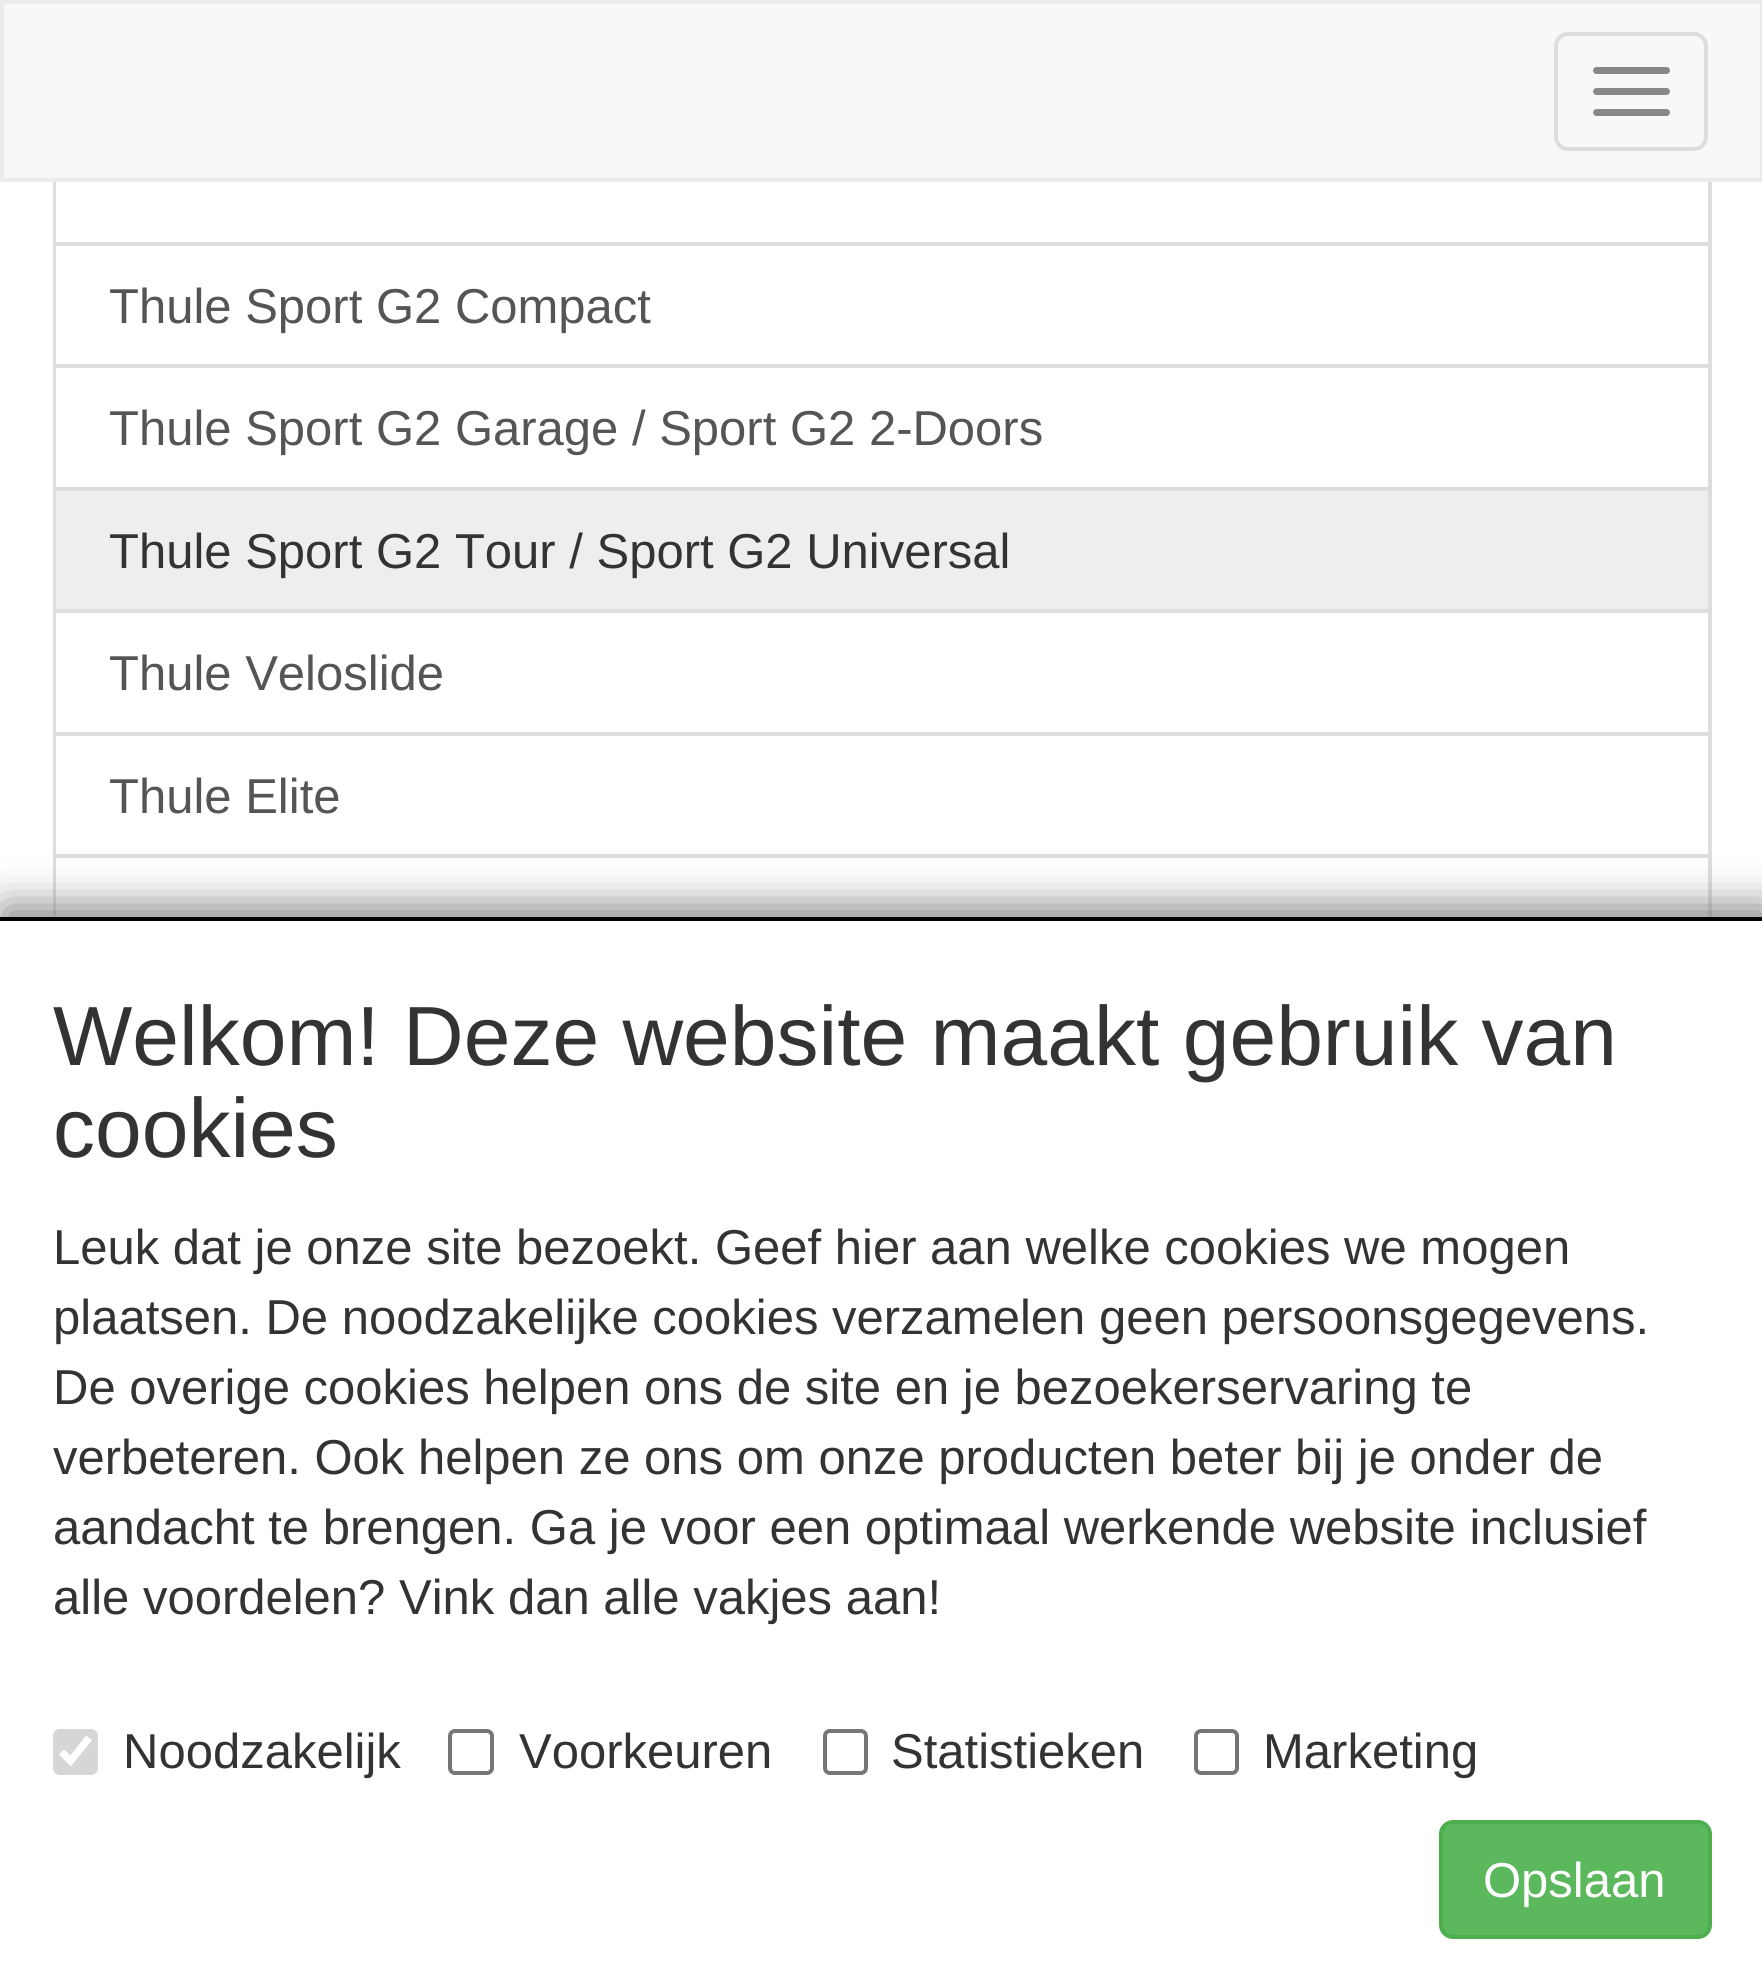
#include <cairo.h>
#include <math.h>
#include <stddef.h>

typedef struct { const char *family; double size; int italic, bold; unsigned color; } style_t;
static cairo_t *ctx;

static void ink(unsigned color) {
    cairo_set_source_rgb(ctx, (color >> 16) / 255.0, (color >> 8 & 255) / 255.0, (color & 255) / 255.0);
}

static void write(double x, double y, const char *s, const style_t *st) {
    cairo_select_font_face(ctx, st->family, st->italic ? CAIRO_FONT_SLANT_ITALIC : CAIRO_FONT_SLANT_NORMAL,
        st->bold ? CAIRO_FONT_WEIGHT_BOLD : CAIRO_FONT_WEIGHT_NORMAL);
    cairo_set_font_size(ctx, st->size);
    ink(st->color);
    cairo_move_to(ctx, x, y);
    cairo_show_text(ctx, s);
}

static void block(double x, double y, double w, double h, unsigned color) {
    ink(color);
    cairo_rectangle(ctx, x, y, w, h);
    cairo_fill(ctx);
}

static void round_path(double x, double y, double w, double h, double r) {
    cairo_new_sub_path(ctx);
    cairo_arc(ctx, x + w - r, y + h - r, r, 0, M_PI / 2);
    cairo_arc(ctx, x + r, y + h - r, r, M_PI / 2, M_PI);
    cairo_arc(ctx, x + r, y + r, r, M_PI, 1.5 * M_PI);
    cairo_arc(ctx, x + w - r, y + r, r, 1.5 * M_PI, 2 * M_PI);
    cairo_close_path(ctx);
}

static void blur_box(double x, double y, double w, double h, double r, double blur, double alpha) {
    cairo_push_group_with_content(ctx, CAIRO_CONTENT_ALPHA);
    cairo_set_operator(ctx, CAIRO_OPERATOR_SOURCE);
    for (int i = 15; i >= -15 && fmin(w, h) + blur * i / 3 > 0; i -= 2) {
        double e = blur * i / 6;
        cairo_set_source_rgba(ctx, 0, 0, 0, alpha * erfc((i - 1) / 8.5) / 2);
        round_path(x - e, y - e, w + 2 * e, h + 2 * e, fmax(0, fmin(r + e + blur * .6, fmin(w, h) / 2 + e)));
        cairo_fill(ctx);
    }
    cairo_pattern_t *soft = cairo_pop_group(ctx);
    cairo_mask(ctx, soft);
    cairo_pattern_destroy(soft);
}

static const style_t s1 = {"Liberation Sans", 49, 0, 0, 0x555555};
static const style_t s2 = {"Liberation Sans", 49, 0, 0, 0x333333};
static const style_t s3 = {"Liberation Sans", 84, 0, 0, 0x333333};
static const style_t s4 = {"Liberation Sans", 49, 0, 0, 0xfefefe};

int main(void) {
    cairo_surface_t *surface = cairo_image_surface_create(CAIRO_FORMAT_RGB24, 1762, 1987);
    ctx = cairo_create(surface);
    cairo_font_options_t *options = cairo_font_options_create();
    cairo_font_options_set_hint_metrics(options, CAIRO_HINT_METRICS_OFF);
    cairo_font_options_set_hint_style(options, CAIRO_HINT_STYLE_NONE);
    cairo_set_font_options(ctx, options);
    cairo_set_miter_limit(ctx, 4);
    ink(0xffffff);
    cairo_paint(ctx);
    cairo_rectangle(ctx, 55, -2, 1655, 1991);
    ink(0xdddddd);
    cairo_set_line_width(ctx, 4);
    cairo_stroke(ctx);
    ink(0xf8f8f8);
    cairo_rectangle(ctx, 2, 2, 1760, 178);
    cairo_fill_preserve(ctx);
    ink(0xebebeb);
    cairo_stroke(ctx);
    round_path(1556, 34, 150, 115, 12);
    ink(0xdddddd);
    cairo_stroke(ctx);
    ink(0x888888);
    round_path(1593, 67, 77, 7, 3.5);
    cairo_fill(ctx);
    round_path(1593, 88, 77, 7, 3.5);
    cairo_fill(ctx);
    round_path(1593, 109, 77, 7, 3.5);
    cairo_fill(ctx);
    block(56, 182, 1, 60, 0xfefefe);
    block(56, 246, 1, 118, 0xfefefe);
    block(56, 242, 1652, 4, 0xdddddd);
    write(109, 323, "Thule Sport G2 Compact", &s1);
    block(56, 368, 1, 119, 0xfefefe);
    block(56, 364, 1652, 4, 0xdddddd);
    write(109, 445, "Thule Sport G2 Garage / Sport G2 2-Doors", &s1);
    block(56, 491, 1652, 118, 0xeeeeee);
    block(56, 487, 1652, 4, 0xdddddd);
    write(109, 568, "Thule Sport G2 Tour / Sport G2 Universal", &s2);
    block(56, 613, 1, 119, 0xfefefe);
    block(56, 609, 1652, 4, 0xdddddd);
    write(109, 690, "Thule Veloslide", &s1);
    block(56, 736, 1, 118, 0xfefefe);
    block(56, 732, 1652, 4, 0xdddddd);
    write(109, 813, "Thule Elite", &s1);
    block(56, 858, 1, 59, 0xfefefe);
    block(56, 854, 1652, 4, 0xdddddd);
    ink(0x808080);
    blur_box(4, 907, 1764, 1071, 0, 21, 1);
    block(0, 921, 1762, 1066, 0xffffff);
    block(0, 917, 1762, 4, 0x000000);
    write(53, 1065, "Welkom! Deze website maakt gebruik van", &s3);
    write(53, 1157, "cookies", &s3);
    write(53, 1264, "Leuk dat je onze site bezoekt. Geef hier aan welke cookies we mogen", &s2);
    write(53, 1334, "plaatsen. De noodzakelijke cookies verzamelen geen persoonsgegevens.", &s2);
    write(53, 1404, "De overige cookies helpen ons de site en je bezoekerservaring te", &s2);
    write(53, 1474, "verbeteren. Ook helpen ze ons om onze producten beter bij je onder de", &s2);
    write(53, 1544, "aandacht te brengen. Ga je voor een optimaal werkende website inclusief", &s2);
    write(53, 1614, "alle voordelen? Vink dan alle vakjes aan!", &s2);
    ink(0xd6d6d6);
    round_path(53, 1729, 45, 46, 7);
    cairo_fill(ctx);
    cairo_new_path(ctx);
    cairo_move_to(ctx, 61.5, 1752);
    cairo_line_to(ctx, 70.5, 1761);
    cairo_line_to(ctx, 89, 1738);
    ink(0xffffff);
    cairo_set_line_width(ctx, 7.3);
    cairo_stroke(ctx);
    write(123, 1768, "Noodzakelijk", &s2);
    round_path(450, 1731, 42, 42, 5);
    ink(0x767676);
    cairo_set_line_width(ctx, 4);
    cairo_stroke(ctx);
    write(519, 1768, "Voorkeuren", &s2);
    round_path(825, 1731, 41, 42, 5);
    ink(0x767676);
    cairo_stroke(ctx);
    write(891, 1768, "Statistieken", &s2);
    round_path(1196, 1731, 41, 42, 5);
    ink(0x767676);
    cairo_stroke(ctx);
    write(1263, 1768, "Marketing", &s2);
    ink(0x5cb85c);
    round_path(1441, 1822, 269, 115, 12);
    cairo_fill_preserve(ctx);
    ink(0x4cae4c);
    cairo_stroke(ctx);
    write(1483, 1897, "Opslaan", &s4);
    cairo_surface_write_to_png(surface, "screenshot.png");
    cairo_font_options_destroy(options);
    cairo_destroy(ctx);
    cairo_surface_destroy(surface);
    return 0;
}
